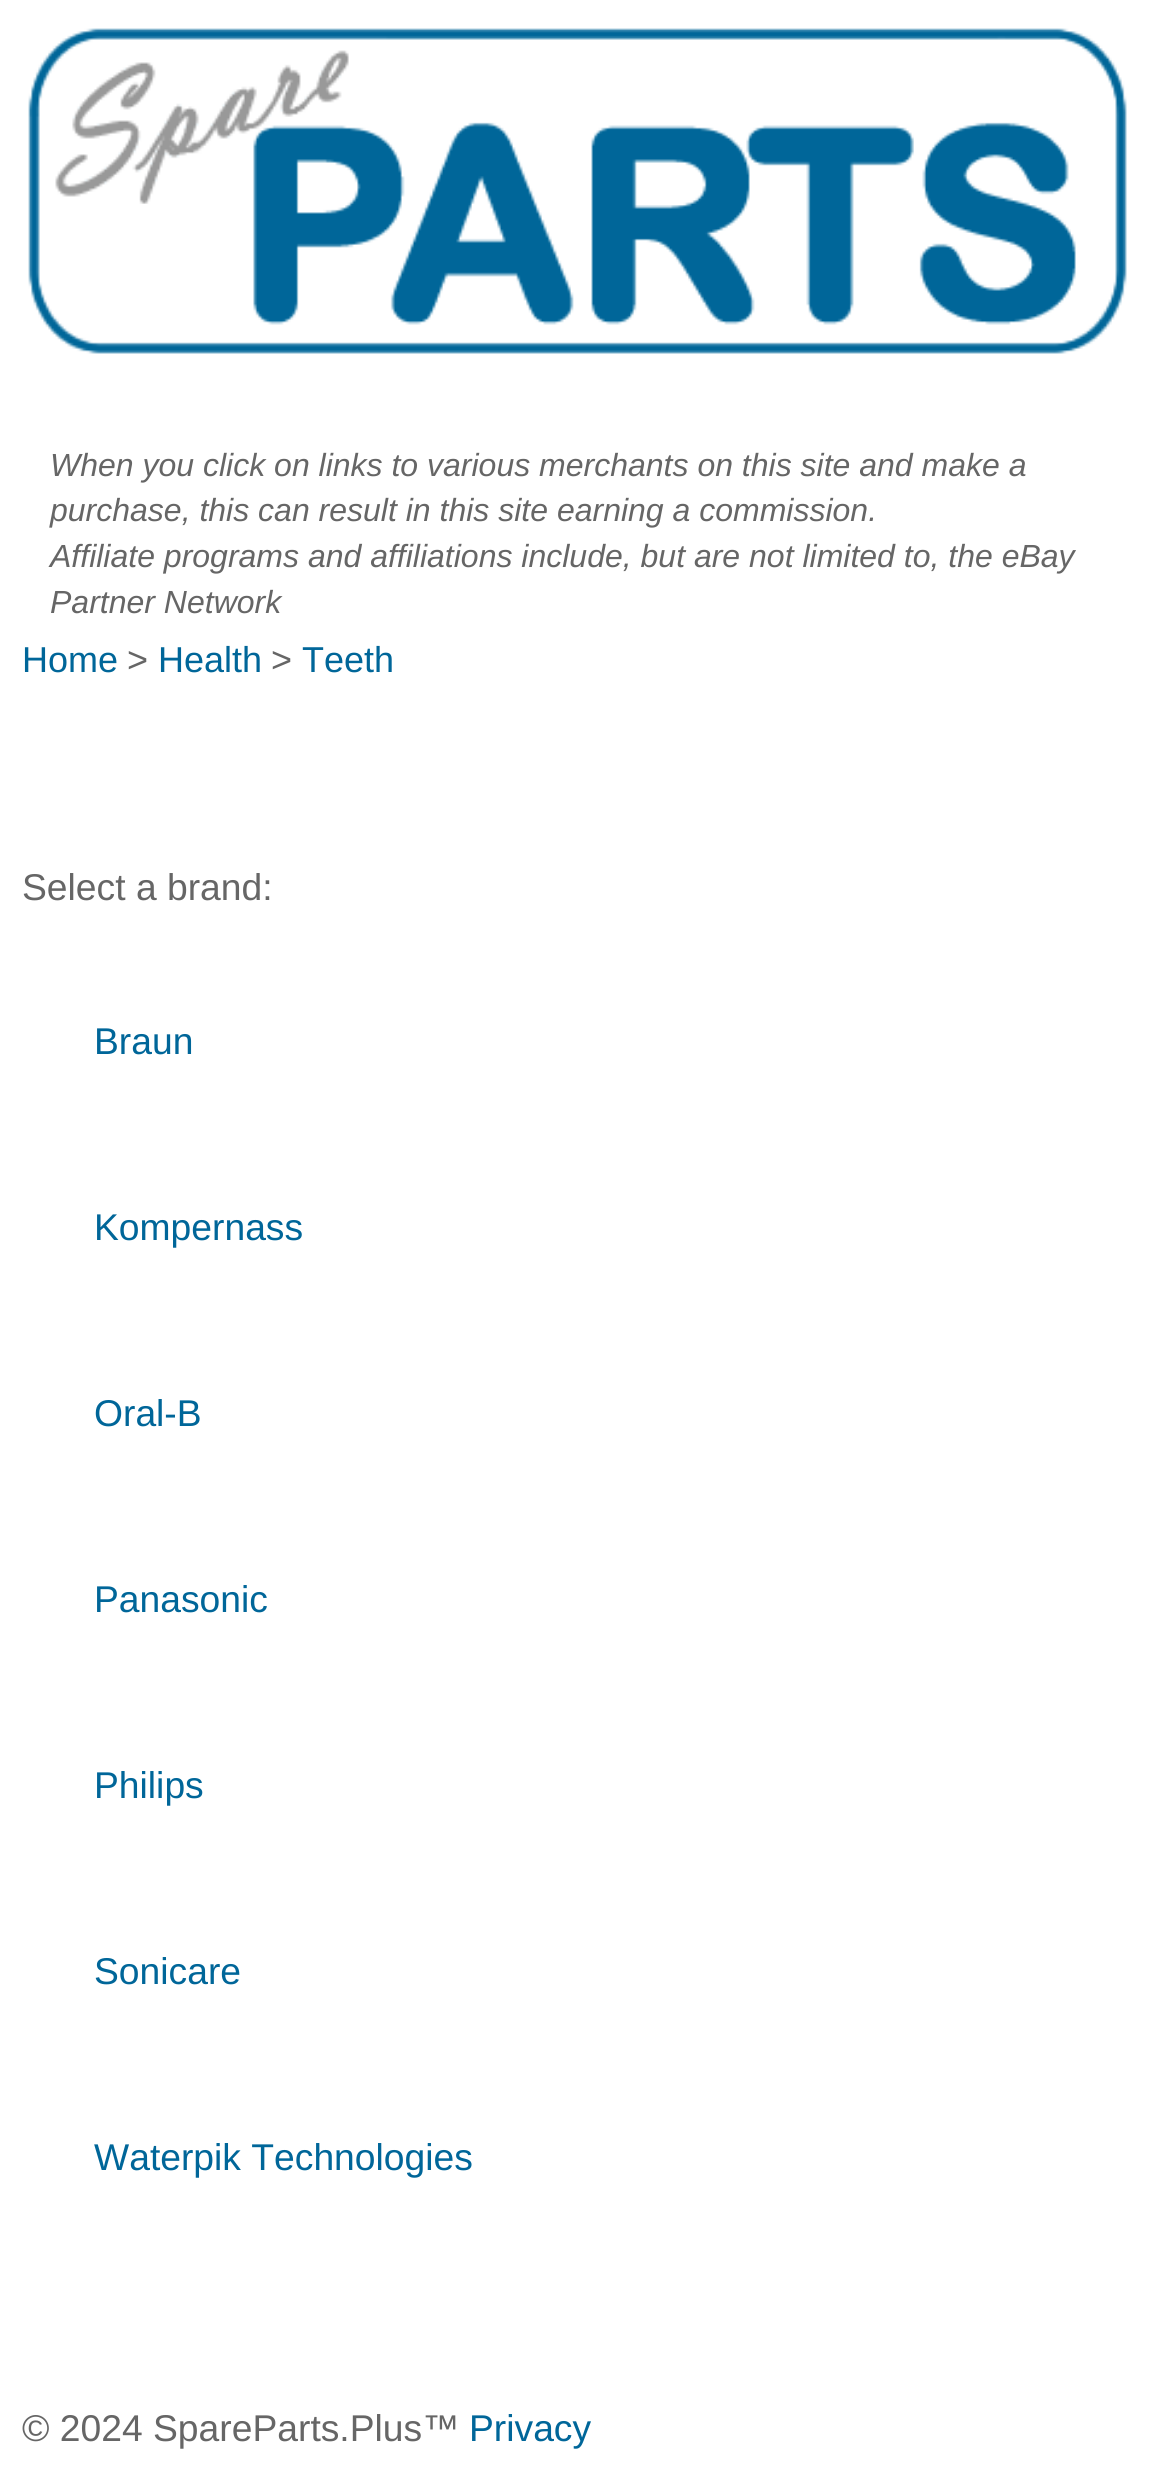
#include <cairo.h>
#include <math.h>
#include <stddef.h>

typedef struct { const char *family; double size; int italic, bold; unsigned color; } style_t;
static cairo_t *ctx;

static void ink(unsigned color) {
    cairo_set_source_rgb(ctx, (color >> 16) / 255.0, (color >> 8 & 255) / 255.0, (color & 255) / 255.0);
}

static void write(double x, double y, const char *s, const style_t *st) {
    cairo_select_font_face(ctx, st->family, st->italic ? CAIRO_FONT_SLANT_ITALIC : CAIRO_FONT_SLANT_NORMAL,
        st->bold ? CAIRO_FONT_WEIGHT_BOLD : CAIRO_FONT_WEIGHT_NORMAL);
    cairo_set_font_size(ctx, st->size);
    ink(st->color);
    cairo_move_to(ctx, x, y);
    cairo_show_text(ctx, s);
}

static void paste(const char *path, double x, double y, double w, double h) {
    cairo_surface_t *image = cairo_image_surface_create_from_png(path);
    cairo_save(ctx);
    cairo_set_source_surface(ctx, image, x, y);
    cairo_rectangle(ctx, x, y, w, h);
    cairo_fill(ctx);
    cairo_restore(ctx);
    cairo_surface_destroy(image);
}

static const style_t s1 = {"Liberation Sans", 32, 1, 0, 0x666666};
static const style_t s2 = {"Liberation Sans", 36, 0, 0, 0x006699};
static const style_t s3 = {"Liberation Sans", 36, 0, 0, 0x666666};
static const style_t s4 = {"Liberation Sans", 37.25, 0, 0, 0x666666};
static const style_t s5 = {"Liberation Sans", 37.25, 0, 0, 0x006699};

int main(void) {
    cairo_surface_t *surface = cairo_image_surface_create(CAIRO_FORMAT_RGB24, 1155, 2470);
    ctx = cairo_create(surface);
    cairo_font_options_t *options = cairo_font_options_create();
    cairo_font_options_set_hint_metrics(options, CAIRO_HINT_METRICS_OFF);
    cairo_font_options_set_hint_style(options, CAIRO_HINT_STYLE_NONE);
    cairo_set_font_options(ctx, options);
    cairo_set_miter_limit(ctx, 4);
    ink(0xffffff);
    cairo_paint(ctx);
    paste("pic1.png", 28, 28, 1099, 326);
    write(50, 476, "When you click on links to various merchants on this site and make a", &s1);
    write(50, 521, "purchase, this can result in this site earning a commission.", &s1);
    write(50, 567, "Affiliate programs and affiliations include, but are not limited to, the eBay", &s1);
    write(50, 613, "Partner Network", &s1);
    write(22, 672, "Home", &s2);
    write(127, 672, ">", &s3);
    write(158, 672, "Health", &s2);
    write(271, 672, ">", &s3);
    write(302, 672, "Teeth", &s2);
    write(22, 900, "Select a brand:", &s4);
    write(94, 1054, "Braun", &s5);
    write(94, 1240, "Kompernass", &s5);
    write(94, 1426, "Oral-B", &s5);
    write(94, 1612, "Panasonic", &s5);
    write(94, 1798, "Philips", &s5);
    write(94, 1984, "Sonicare", &s5);
    write(94, 2170, "Waterpik Technologies", &s5);
    write(22, 2441, "© 2024 SpareParts.Plus™", &s4);
    write(469, 2441, "Privacy", &s5);
    cairo_surface_write_to_png(surface, "screenshot.png");
    cairo_font_options_destroy(options);
    cairo_destroy(ctx);
    cairo_surface_destroy(surface);
    return 0;
}
